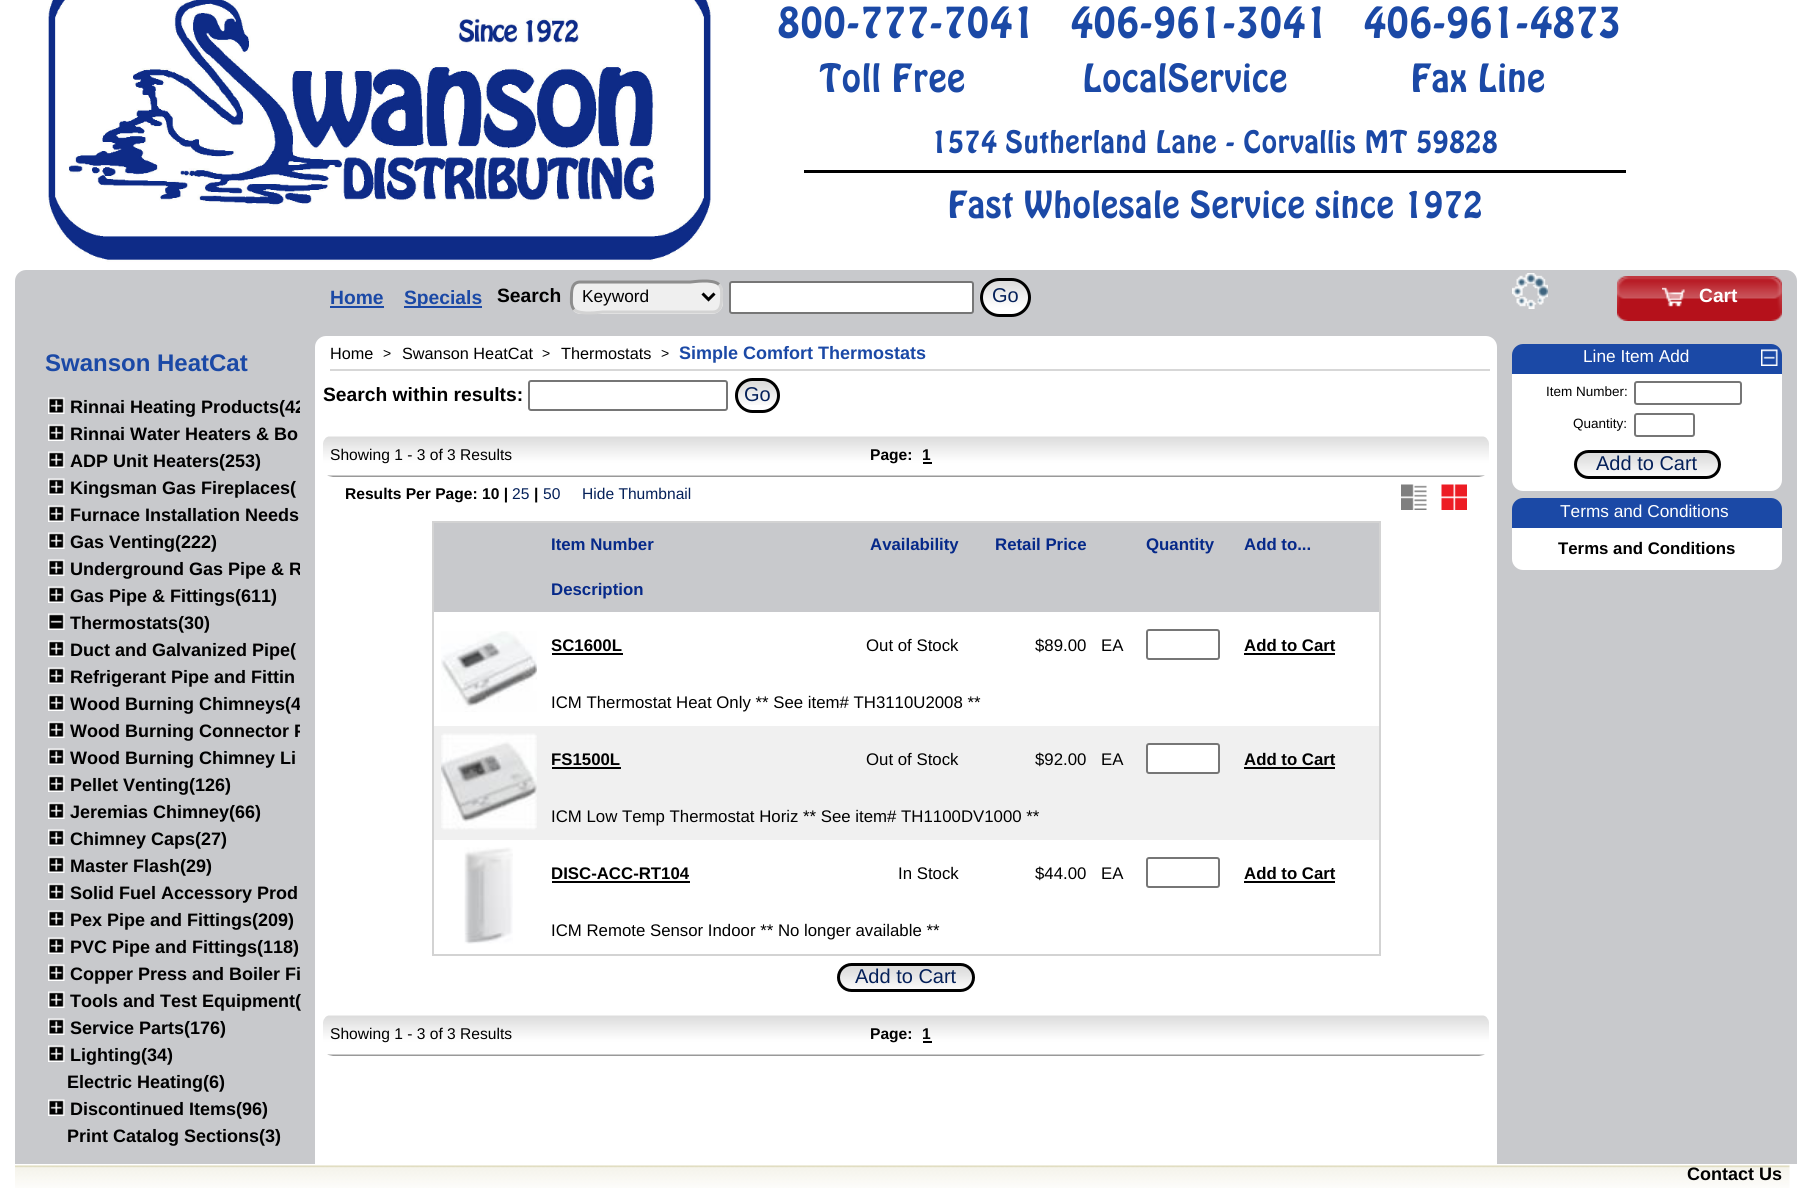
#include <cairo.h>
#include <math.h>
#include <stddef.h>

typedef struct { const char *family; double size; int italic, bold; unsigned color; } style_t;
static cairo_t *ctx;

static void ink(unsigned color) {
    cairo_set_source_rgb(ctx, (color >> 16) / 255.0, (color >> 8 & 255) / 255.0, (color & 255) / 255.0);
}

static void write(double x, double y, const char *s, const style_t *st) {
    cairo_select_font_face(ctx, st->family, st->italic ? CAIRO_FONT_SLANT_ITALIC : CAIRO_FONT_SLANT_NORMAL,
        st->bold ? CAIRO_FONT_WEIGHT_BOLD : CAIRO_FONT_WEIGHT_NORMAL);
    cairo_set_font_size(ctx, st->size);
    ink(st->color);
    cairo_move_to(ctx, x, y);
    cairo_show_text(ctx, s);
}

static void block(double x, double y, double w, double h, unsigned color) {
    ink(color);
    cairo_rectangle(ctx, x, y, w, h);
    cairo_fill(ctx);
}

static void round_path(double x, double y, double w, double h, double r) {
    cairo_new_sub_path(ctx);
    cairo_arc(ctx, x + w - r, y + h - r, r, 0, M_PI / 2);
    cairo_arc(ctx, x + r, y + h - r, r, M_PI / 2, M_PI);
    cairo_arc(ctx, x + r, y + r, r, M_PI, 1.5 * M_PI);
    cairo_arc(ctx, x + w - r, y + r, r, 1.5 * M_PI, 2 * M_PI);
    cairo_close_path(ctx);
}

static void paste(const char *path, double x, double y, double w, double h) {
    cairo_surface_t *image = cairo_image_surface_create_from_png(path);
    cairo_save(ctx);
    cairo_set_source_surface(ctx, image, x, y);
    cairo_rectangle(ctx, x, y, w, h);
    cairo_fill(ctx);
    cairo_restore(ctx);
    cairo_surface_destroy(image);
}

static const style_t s1 = {"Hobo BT", 42, 0, 0, 0x1b49a6};
static const style_t s2 = {"Hobo BT", 37.5, 0, 0, 0x1b49a6};
static const style_t s3 = {"Hobo BT", 30, 0, 0, 0x1b49a6};
static const style_t s4 = {"Hobo BT", 36, 0, 0, 0x1b49a6};
static const style_t s5 = {"Liberation Sans", 19.25, 0, 1, 0x1b49a6};
static const style_t s6 = {"Liberation Sans", 19.25, 0, 1, 0x000000};
static const style_t s7 = {"Liberation Sans", 17.25, 0, 0, 0x000000};
static const style_t s8 = {"Liberation Sans", 20, 0, 0, 0x042059};
static const style_t s9 = {"Liberation Sans", 19.25, 0, 1, 0xffffff};
static const style_t s10 = {"Liberation Sans", 24, 0, 1, 0x1b49a6};
static const style_t s11 = {"Liberation Sans", 18, 0, 1, 0x000000};
static const style_t s12 = {"Liberation Sans", 16.25, 0, 0, 0x000000};
static const style_t s13 = {"Liberation Sans", 14, 0, 0, 0x000000};
static const style_t s14 = {"Liberation Sans", 18, 0, 1, 0x1b49a6};
static const style_t s15 = {"Liberation Sans", 15.6, 0, 0, 0x000000};
static const style_t s16 = {"Liberation Sans", 15.6, 0, 1, 0x000000};
static const style_t s17 = {"Liberation Sans", 15.6, 0, 0, 0x042059};
static const style_t s18 = {"Liberation Sans", 16.8, 0, 1, 0x062989};
static const style_t s19 = {"Liberation Sans", 16.8, 0, 1, 0x000000};
static const style_t s20 = {"Liberation Sans", 16.8, 0, 0, 0x000000};
static const style_t s21 = {"Liberation Sans", 17.25, 0, 0, 0xffffff};
static const style_t s22 = {"Liberation Sans", 13.5, 0, 0, 0x000000};

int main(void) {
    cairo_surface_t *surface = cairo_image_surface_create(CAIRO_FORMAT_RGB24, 1811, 1188);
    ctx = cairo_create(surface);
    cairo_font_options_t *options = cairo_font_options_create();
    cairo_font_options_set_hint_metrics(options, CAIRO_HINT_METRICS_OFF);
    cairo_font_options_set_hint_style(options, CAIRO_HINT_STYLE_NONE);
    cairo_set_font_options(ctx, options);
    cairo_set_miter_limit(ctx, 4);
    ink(0xffffff);
    cairo_paint(ctx);
    paste("pic1.png", 48, 0, 663, 262);
    write(777, 38, "800-777-7041", &s1);
    write(1070, 38, "406-961-3041", &s1);
    write(1363, 38, "406-961-4873", &s1);
    write(819, 92, "Toll Free", &s2);
    write(1082, 92, "LocalService", &s2);
    write(1410, 92, "Fax Line", &s2);
    write(931, 153, "1574 Sutherland Lane - Corvallis MT 59828", &s3);
    block(804, 170, 822, 3, 0x000000);
    write(947, 218, "Fast Wholesale Service since 1972", &s4);
    ink(0xc8c9cc);
    cairo_new_path(ctx);
    cairo_move_to(ctx, 26, 270);
    cairo_line_to(ctx, 1786, 270);
    cairo_curve_to(ctx, 1792, 270, 1797, 275, 1797, 281);
    cairo_line_to(ctx, 1797, 336);
    cairo_line_to(ctx, 15, 336);
    cairo_line_to(ctx, 15, 281);
    cairo_curve_to(ctx, 15, 275, 20, 270, 26, 270);
    cairo_close_path(ctx);
    cairo_fill(ctx);
    write(330, 304, "Home", &s5);
    block(330, 306, 54, 2, 0x1b49a6);
    block(404, 306, 78, 2, 0x1b49a6);
    write(404, 304, "Specials", &s5);
    write(497, 302, "Search", &s6);
    ink(0xefefef);
    round_path(570, 281, 153, 33, 11);
    cairo_fill(ctx);
    cairo_new_path(ctx);
    cairo_move_to(ctx, 719, 284.5);
    cairo_curve_to(ctx, 722.5, 288.5, 721.5, 294, 721.5, 299);
    cairo_curve_to(ctx, 721.5, 305, 720.5, 312, 712.5, 312);
    cairo_line_to(ctx, 602.5, 312);
    cairo_curve_to(ctx, 600.5, 312, 580.5, 315.5, 574, 309.5);
    ink(0xd3d3d3);
    cairo_set_line_width(ctx, 3);
    cairo_stroke(ctx);
    cairo_new_path(ctx);
    cairo_move_to(ctx, 574, 309.5);
    cairo_curve_to(ctx, 570.5, 305.5, 571.5, 300, 571.5, 295);
    cairo_curve_to(ctx, 571.5, 289, 572.5, 282, 580.5, 282);
    cairo_line_to(ctx, 690.5, 282);
    cairo_curve_to(ctx, 692.5, 282, 712.5, 278.5, 719, 284.5);
    ink(0x8d8d8d);
    cairo_stroke(ctx);
    cairo_new_path(ctx);
    cairo_move_to(ctx, 702.5, 293.5);
    cairo_line_to(ctx, 708.5, 299.5);
    cairo_line_to(ctx, 714.5, 293.5);
    ink(0x000000);
    cairo_stroke(ctx);
    write(582, 302, "Keyword", &s7);
    ink(0xffffff);
    round_path(730, 282, 243, 31, 2);
    cairo_fill_preserve(ctx);
    ink(0x767676);
    cairo_set_line_width(ctx, 2);
    cairo_stroke(ctx);
    paste("pic2.png", 979, 280, 52, 37);
    round_path(981.5, 279.5, 48, 36, 18);
    ink(0x000000);
    cairo_set_line_width(ctx, 3);
    cairo_stroke(ctx);
    write(992, 302, "Go", &s8);
    paste("pic3.png", 1512, 273, 36, 36);
    paste("pic4.png", 1617, 276, 165, 45);
    paste("pic5.png", 1662, 287, 23, 20);
    write(1699, 302, "Cart", &s9);
    block(315, 336, 1182, 11, 0xc8c9cc);
    block(1497, 336, 300, 828, 0xc8c9cc);
    block(15, 336, 300, 828, 0xc8c9cc);
    write(45, 371, "Swanson HeatCat", &s10);
    paste("pic6.png", 48, 397, 17, 17);
    cairo_save(ctx);
    cairo_rectangle(ctx, 30, 393, 270, 756);
    cairo_clip(ctx);
    write(70, 413, "Rinnai Heating Products(42", &s11);
    cairo_restore(ctx);
    paste("pic6.png", 48, 424, 17, 17);
    write(70, 440, "Rinnai Water Heaters & Bo", &s11);
    paste("pic6.png", 48, 451, 17, 17);
    write(70, 467, "ADP Unit Heaters(253)", &s11);
    paste("pic6.png", 48, 478, 17, 17);
    write(70, 494, "Kingsman Gas Fireplaces(", &s11);
    paste("pic6.png", 48, 505, 17, 17);
    write(70, 521, "Furnace Installation Needs", &s11);
    paste("pic6.png", 48, 532, 17, 17);
    write(70, 548, "Gas Venting(222)", &s11);
    paste("pic6.png", 48, 559, 17, 17);
    cairo_save(ctx);
    cairo_rectangle(ctx, 30, 393, 270, 756);
    cairo_clip(ctx);
    write(70, 575, "Underground Gas Pipe & R", &s11);
    cairo_restore(ctx);
    paste("pic6.png", 48, 586, 17, 17);
    write(70, 602, "Gas Pipe & Fittings(611)", &s11);
    paste("pic7.png", 48, 613, 17, 17);
    write(70, 629, "Thermostats(30)", &s11);
    paste("pic6.png", 48, 640, 17, 17);
    write(70, 656, "Duct and Galvanized Pipe(", &s11);
    paste("pic6.png", 48, 667, 17, 17);
    write(70, 683, "Refrigerant Pipe and Fittin", &s11);
    paste("pic6.png", 48, 694, 17, 17);
    cairo_save(ctx);
    cairo_rectangle(ctx, 30, 393, 270, 756);
    cairo_clip(ctx);
    write(70, 710, "Wood Burning Chimneys(4", &s11);
    cairo_restore(ctx);
    paste("pic6.png", 48, 721, 17, 17);
    cairo_save(ctx);
    cairo_rectangle(ctx, 30, 393, 270, 756);
    cairo_clip(ctx);
    write(70, 737, "Wood Burning Connector P", &s11);
    cairo_restore(ctx);
    paste("pic6.png", 48, 748, 17, 17);
    write(70, 764, "Wood Burning Chimney Li", &s11);
    paste("pic6.png", 48, 775, 17, 17);
    write(70, 791, "Pellet Venting(126)", &s11);
    paste("pic6.png", 48, 802, 17, 17);
    write(70, 818, "Jeremias Chimney(66)", &s11);
    paste("pic6.png", 48, 829, 17, 17);
    write(70, 845, "Chimney Caps(27)", &s11);
    paste("pic6.png", 48, 856, 17, 17);
    write(70, 872, "Master Flash(29)", &s11);
    paste("pic6.png", 48, 883, 17, 17);
    write(70, 899, "Solid Fuel Accessory Prod", &s11);
    paste("pic6.png", 48, 910, 17, 17);
    write(70, 926, "Pex Pipe and Fittings(209)", &s11);
    paste("pic6.png", 48, 937, 17, 17);
    write(70, 953, "PVC Pipe and Fittings(118)", &s11);
    paste("pic6.png", 48, 964, 17, 17);
    write(70, 980, "Copper Press and Boiler Fi", &s11);
    paste("pic6.png", 48, 991, 17, 17);
    write(70, 1007, "Tools and Test Equipment(", &s11);
    paste("pic6.png", 48, 1018, 17, 17);
    write(70, 1034, "Service Parts(176)", &s11);
    paste("pic6.png", 48, 1045, 17, 17);
    write(70, 1061, "Lighting(34)", &s11);
    write(67, 1088, "Electric Heating(6)", &s11);
    paste("pic6.png", 48, 1099, 17, 17);
    write(70, 1115, "Discontinued Items(96)", &s11);
    write(67, 1142, "Print Catalog Sections(3)", &s11);
    ink(0xffffff);
    cairo_new_path(ctx);
    cairo_move_to(ctx, 326, 336);
    cairo_line_to(ctx, 1486, 336);
    cairo_curve_to(ctx, 1492, 336, 1497, 341, 1497, 347);
    cairo_line_to(ctx, 1497, 1086);
    cairo_line_to(ctx, 315, 1086);
    cairo_line_to(ctx, 315, 347);
    cairo_curve_to(ctx, 315, 341, 320, 336, 326, 336);
    cairo_close_path(ctx);
    cairo_fill(ctx);
    block(330, 369, 1160, 2, 0xd7d7d7);
    write(330, 359, "Home", &s12);
    write(383, 358, ">", &s13);
    write(402, 359, "Swanson HeatCat", &s12);
    write(542, 358, ">", &s13);
    write(561, 359, "Thermostats", &s12);
    write(661, 358, ">", &s13);
    write(679, 359, "Simple Comfort Thermostats", &s14);
    write(323, 401, "Search within results:", &s6);
    round_path(529, 381, 198, 29, 2);
    ink(0x767676);
    cairo_set_line_width(ctx, 2);
    cairo_stroke(ctx);
    paste("pic8.png", 735, 381, 45, 24);
    round_path(736.5, 379.5, 42, 32, 16);
    ink(0x000000);
    cairo_set_line_width(ctx, 3);
    cairo_stroke(ctx);
    write(744, 401, "Go", &s8);
    paste("pic9.png", 323, 436, 1166, 41);
    write(330, 460, "Showing 1 - 3 of 3 Results", &s15);
    write(870, 460, "Page:", &s16);
    write(922, 460, "1", &s16);
    block(923, 462, 9, 2, 0x000000);
    write(345, 499, "Results Per Page: 10 |", &s16);
    write(512, 499, "25", &s17);
    write(534, 499, "|", &s16);
    write(543, 499, "50", &s17);
    write(582, 499, "Hide Thumbnail", &s17);
    paste("pic10.png", 1401, 484, 26, 26);
    paste("pic11.png", 1441, 484, 26, 26);
    block(432, 521, 948, 2, 0xd3d3d3);
    block(1379, 521, 2, 435, 0xd3d3d3);
    block(432, 954, 948, 2, 0xd3d3d3);
    block(432, 521, 2, 435, 0xd3d3d3);
    block(434, 523, 945, 89, 0xc8c9cc);
    write(551, 550, "Item Number", &s18);
    write(870, 550, "Availability", &s18);
    write(995, 550, "Retail Price", &s18);
    write(1146, 550, "Quantity", &s18);
    write(1244, 550, "Add to...", &s18);
    write(551, 595, "Description", &s18);
    paste("pic12.png", 441, 631, 96, 81);
    write(551, 651, "SC1600L", &s19);
    block(552, 653, 71, 2, 0x000000);
    write(866, 651, "Out of Stock", &s20);
    write(1035, 651, "$89.00", &s20);
    write(1101, 651, "EA", &s20);
    round_path(1147, 630, 72, 29, 2);
    ink(0x767676);
    cairo_set_line_width(ctx, 2);
    cairo_stroke(ctx);
    write(1244, 651, "Add to Cart", &s19);
    block(1244, 653, 91, 2, 0x000000);
    write(551, 708, "ICM Thermostat Heat Only ** See item# TH3110U2008 **", &s20);
    block(434, 726, 945, 114, 0xf0f0f0);
    paste("pic13.png", 441, 733, 96, 97);
    write(551, 765, "FS1500L", &s19);
    block(552, 767, 69, 2, 0x000000);
    write(866, 765, "Out of Stock", &s20);
    write(1035, 765, "$92.00", &s20);
    write(1101, 765, "EA", &s20);
    ink(0xffffff);
    round_path(1147, 744, 72, 29, 2);
    cairo_fill_preserve(ctx);
    ink(0x767676);
    cairo_stroke(ctx);
    write(1244, 765, "Add to Cart", &s19);
    block(1244, 767, 91, 2, 0x000000);
    write(551, 822, "ICM Low Temp Thermostat Horiz ** See item# TH1100DV1000 **", &s20);
    paste("pic14.png", 464, 847, 49, 97);
    write(551, 879, "DISC-ACC-RT104", &s19);
    block(552, 881, 138, 2, 0x000000);
    write(898, 879, "In Stock", &s20);
    write(1035, 879, "$44.00", &s20);
    write(1101, 879, "EA", &s20);
    round_path(1147, 858, 72, 29, 2);
    ink(0x767676);
    cairo_stroke(ctx);
    write(1244, 879, "Add to Cart", &s19);
    block(1244, 881, 91, 2, 0x000000);
    write(551, 936, "ICM Remote Sensor Indoor ** No longer available **", &s20);
    paste("pic15.png", 837, 966, 138, 24);
    round_path(838.5, 964.5, 135, 26, 13);
    cairo_set_line_width(ctx, 3);
    cairo_stroke(ctx);
    write(855, 983, "Add to Cart", &s8);
    paste("pic9.png", 323, 1015, 1166, 41);
    write(330, 1039, "Showing 1 - 3 of 3 Results", &s15);
    write(870, 1039, "Page:", &s16);
    write(922, 1039, "1", &s16);
    block(923, 1041, 9, 2, 0x000000);
    ink(0x1b49a6);
    cairo_new_path(ctx);
    cairo_move_to(ctx, 1523, 344);
    cairo_line_to(ctx, 1771, 344);
    cairo_curve_to(ctx, 1777, 344, 1782, 349, 1782, 355);
    cairo_line_to(ctx, 1782, 375);
    cairo_line_to(ctx, 1512, 375);
    cairo_line_to(ctx, 1512, 355);
    cairo_curve_to(ctx, 1512, 349, 1517, 344, 1523, 344);
    cairo_close_path(ctx);
    cairo_fill(ctx);
    block(1512, 374, 270, 1, 0xffffff);
    write(1583, 362, "Line Item Add", &s21);
    paste("pic16.png", 1761, 349, 17, 17);
    cairo_new_path(ctx);
    cairo_move_to(ctx, 1512, 375);
    cairo_line_to(ctx, 1782, 375);
    cairo_line_to(ctx, 1782, 480);
    cairo_curve_to(ctx, 1782, 486, 1777, 491, 1771, 491);
    cairo_line_to(ctx, 1523, 491);
    cairo_curve_to(ctx, 1517, 491, 1512, 486, 1512, 480);
    cairo_close_path(ctx);
    cairo_fill(ctx);
    write(1546, 396, "Item Number:", &s22);
    round_path(1635, 382, 106, 22, 2);
    ink(0x767676);
    cairo_set_line_width(ctx, 2);
    cairo_stroke(ctx);
    write(1573, 428, "Quantity:", &s22);
    round_path(1635, 414, 59, 22, 2);
    ink(0x767676);
    cairo_stroke(ctx);
    paste("pic17.png", 1573, 453, 148, 25);
    round_path(1575.5, 451.5, 144, 26, 13);
    ink(0x000000);
    cairo_set_line_width(ctx, 3);
    cairo_stroke(ctx);
    write(1596, 470, "Add to Cart", &s8);
    ink(0x1b49a6);
    cairo_new_path(ctx);
    cairo_move_to(ctx, 1523, 498);
    cairo_line_to(ctx, 1771, 498);
    cairo_curve_to(ctx, 1777, 498, 1782, 503, 1782, 509);
    cairo_line_to(ctx, 1782, 530);
    cairo_line_to(ctx, 1512, 530);
    cairo_line_to(ctx, 1512, 509);
    cairo_curve_to(ctx, 1512, 503, 1517, 498, 1523, 498);
    cairo_close_path(ctx);
    cairo_fill(ctx);
    block(1512, 528, 270, 2, 0xffffff);
    write(1560, 517, "Terms and Conditions", &s21);
    cairo_new_path(ctx);
    cairo_move_to(ctx, 1512, 530);
    cairo_line_to(ctx, 1782, 530);
    cairo_line_to(ctx, 1782, 559);
    cairo_curve_to(ctx, 1782, 565, 1777, 570, 1771, 570);
    cairo_line_to(ctx, 1523, 570);
    cairo_curve_to(ctx, 1517, 570, 1512, 565, 1512, 559);
    cairo_close_path(ctx);
    cairo_fill(ctx);
    write(1558, 554, "Terms and Conditions", &s19);
    paste("pic18.png", 15, 1165, 1775, 23);
    write(1687, 1180, "Contact Us", &s11);
    cairo_surface_write_to_png(surface, "screenshot.png");
    cairo_font_options_destroy(options);
    cairo_destroy(ctx);
    cairo_surface_destroy(surface);
    return 0;
}
